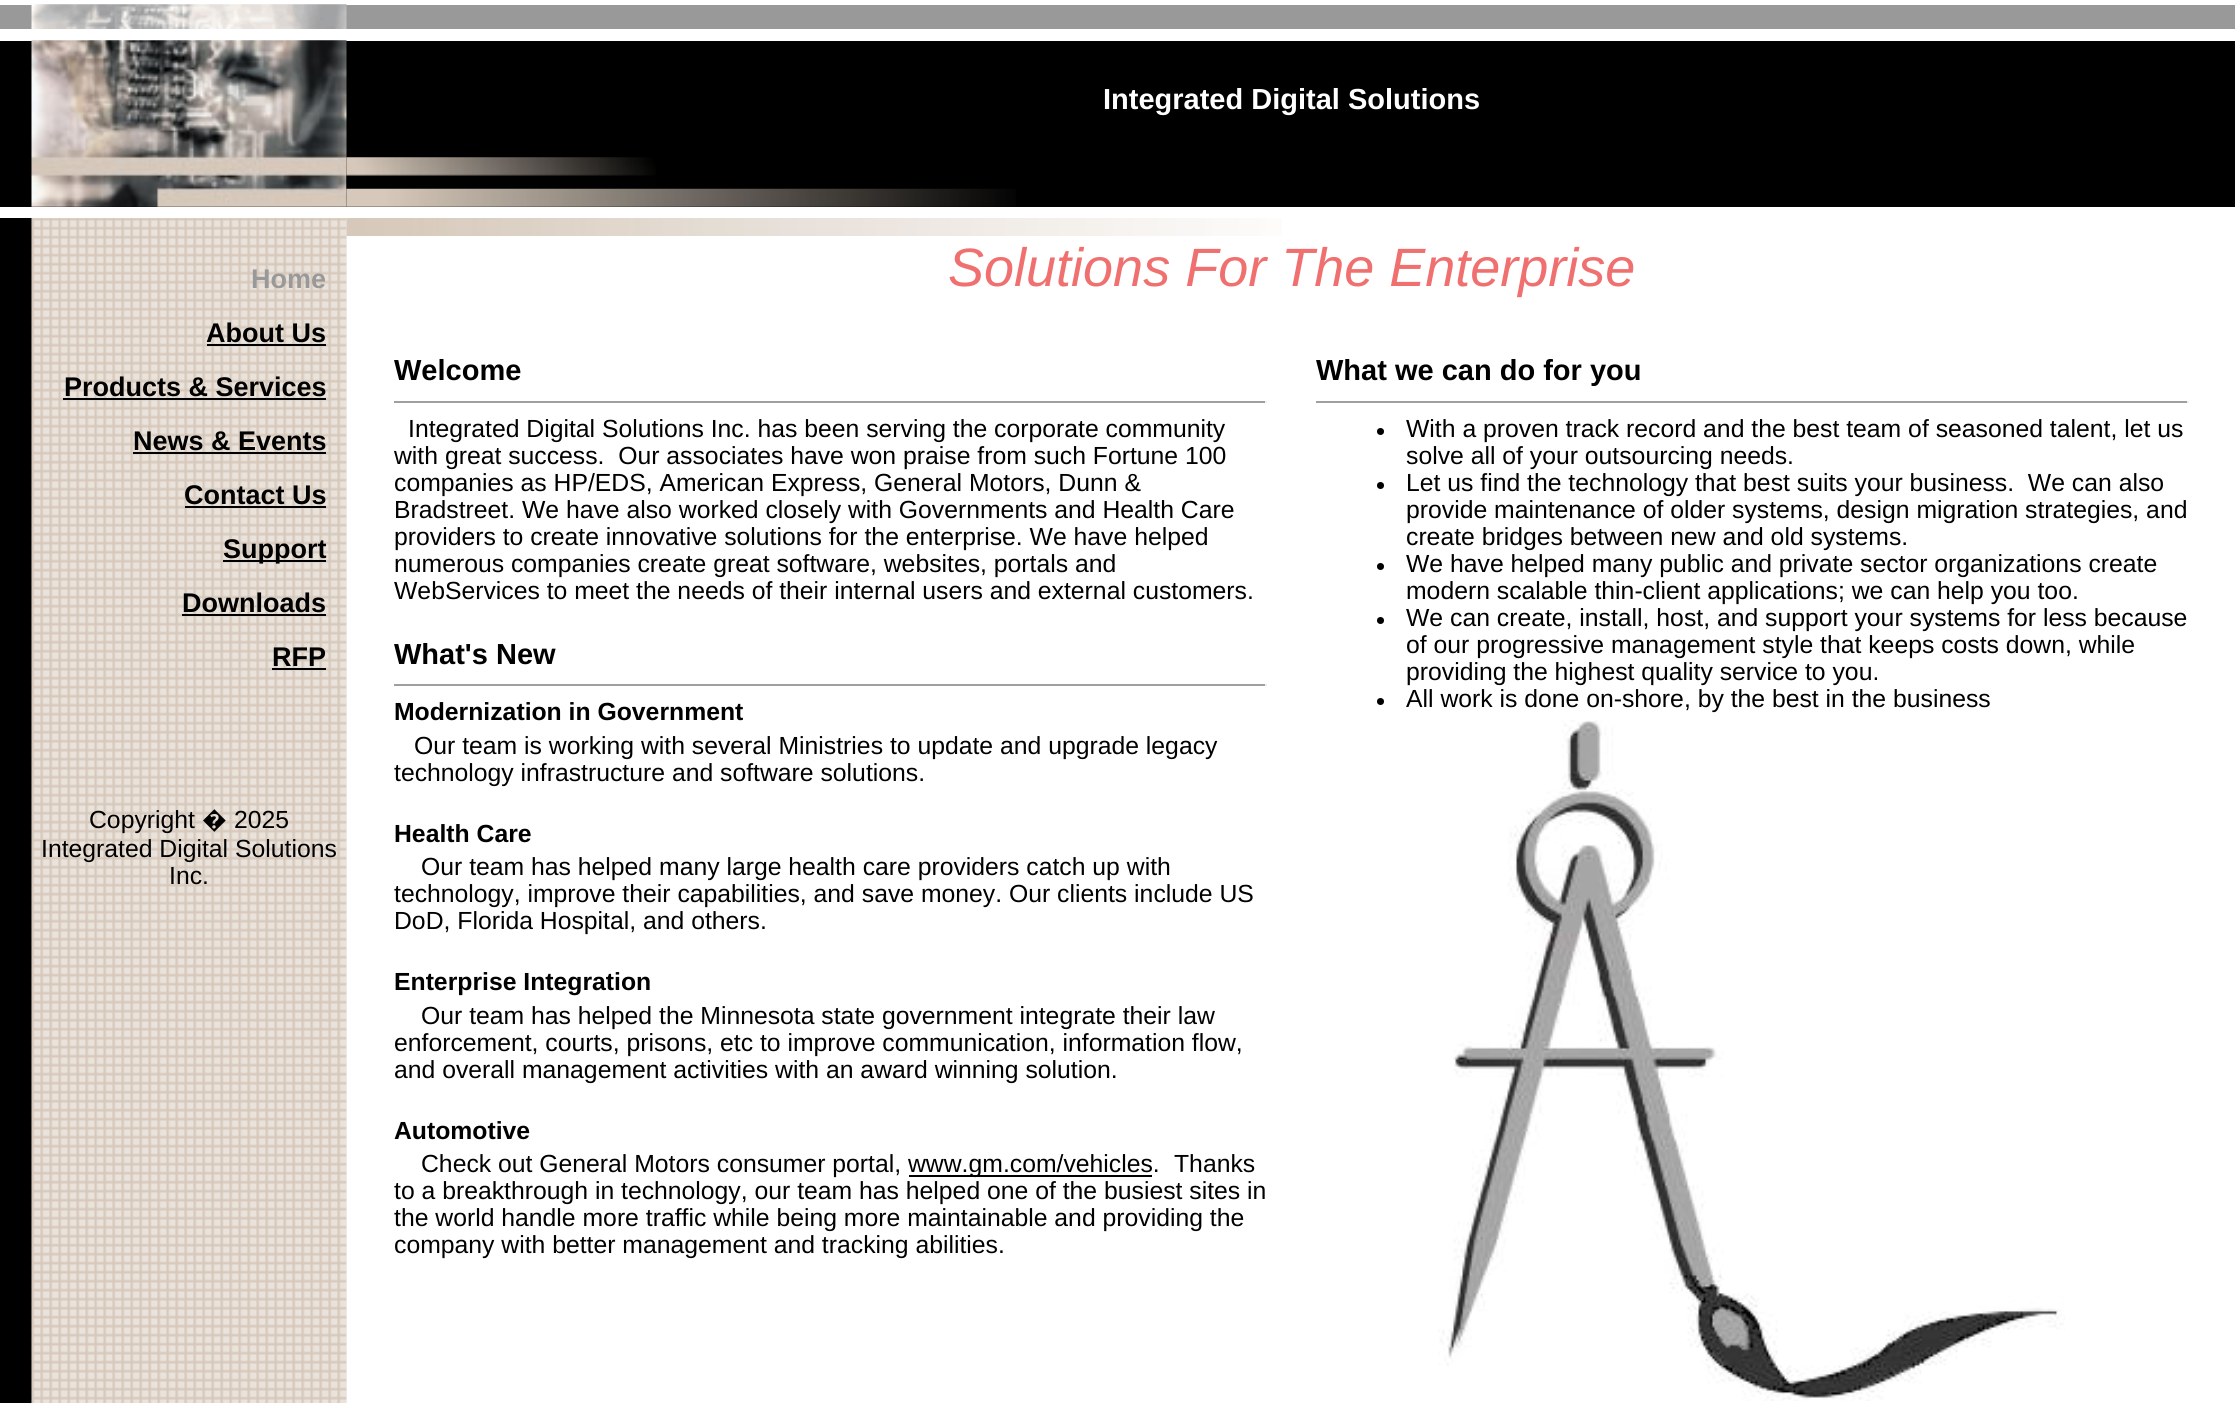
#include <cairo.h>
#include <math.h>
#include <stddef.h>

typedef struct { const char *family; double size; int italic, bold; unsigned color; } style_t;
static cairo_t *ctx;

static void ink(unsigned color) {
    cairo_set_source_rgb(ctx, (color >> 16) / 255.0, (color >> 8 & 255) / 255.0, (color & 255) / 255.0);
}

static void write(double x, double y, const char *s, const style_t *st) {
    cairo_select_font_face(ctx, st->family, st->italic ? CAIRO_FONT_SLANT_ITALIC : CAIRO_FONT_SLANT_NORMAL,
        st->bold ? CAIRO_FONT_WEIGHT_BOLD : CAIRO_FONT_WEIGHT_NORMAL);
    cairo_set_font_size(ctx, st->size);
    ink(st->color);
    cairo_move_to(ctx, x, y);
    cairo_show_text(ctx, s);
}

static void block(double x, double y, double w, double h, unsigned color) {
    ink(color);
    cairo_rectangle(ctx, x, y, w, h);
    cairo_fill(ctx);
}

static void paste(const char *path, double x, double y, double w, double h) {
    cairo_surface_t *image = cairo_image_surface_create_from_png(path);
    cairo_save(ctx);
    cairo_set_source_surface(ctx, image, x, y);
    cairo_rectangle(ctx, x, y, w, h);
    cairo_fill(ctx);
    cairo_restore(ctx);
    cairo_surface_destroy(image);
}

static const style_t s1 = {"Liberation Sans", 29, 0, 1, 0xffffff};
static const style_t s2 = {"Liberation Sans", 27, 0, 1, 0x999999};
static const style_t s3 = {"Liberation Sans", 27, 0, 1, 0x000000};
static const style_t s4 = {"Liberation Sans", 24.75, 0, 0, 0x000000};
static const style_t s5 = {"Noto Sans", 24.75, 0, 0, 0x000000};
static const style_t s6 = {"Liberation Sans", 54, 1, 0, 0xf07070};
static const style_t s7 = {"Liberation Sans", 29, 0, 1, 0x000000};
static const style_t s8 = {"Liberation Sans", 24.75, 0, 1, 0x000000};

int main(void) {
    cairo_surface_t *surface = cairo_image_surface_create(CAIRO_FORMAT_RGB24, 2235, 1403);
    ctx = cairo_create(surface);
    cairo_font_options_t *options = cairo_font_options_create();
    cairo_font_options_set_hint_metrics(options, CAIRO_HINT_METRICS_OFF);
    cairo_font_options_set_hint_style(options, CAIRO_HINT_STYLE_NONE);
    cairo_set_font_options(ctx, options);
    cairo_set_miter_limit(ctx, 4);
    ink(0xffffff);
    cairo_paint(ctx);
    block(0, 5, 32, 24, 0x999999);
    block(346, 5, 1889, 24, 0x999999);
    paste("pic1.png", 31, 4, 316, 25);
    block(0, 41, 2235, 166, 0x000000);
    paste("pic2.png", 31, 40, 316, 167);
    write(1103, 109, "Integrated Digital Solutions", &s1);
    paste("pic3.png", 346, 157, 310, 32);
    paste("pic4.png", 346, 188, 670, 19);
    block(0, 218, 32, 1185, 0x000000);
    paste("pic5.png", 31, 218, 316, 1185);
    write(251, 288, "Home", &s2);
    write(206, 342, "About Us", &s3);
    block(207, 344, 119, 2, 0x000000);
    write(64, 396, "Products & Services", &s3);
    block(63, 398, 263, 2, 0x000000);
    write(133, 450, "News & Events", &s3);
    block(133, 452, 193, 2, 0x000000);
    write(184, 504, "Contact Us", &s3);
    block(185, 506, 141, 2, 0x000000);
    block(223, 560, 103, 2, 0x000000);
    write(223, 558, "Support", &s3);
    write(182, 612, "Downloads", &s3);
    block(182, 614, 144, 2, 0x000000);
    write(272, 666, "RFP", &s3);
    block(272, 668, 54, 2, 0x000000);
    write(89, 828, "Copyright", &s4);
    write(202, 828, "�", &s5);
    write(234, 828, "2025", &s4);
    write(41, 857, "Integrated Digital Solutions", &s4);
    write(169, 884, "Inc.", &s4);
    paste("pic6.png", 346, 218, 936, 18);
    write(948, 286, "Solutions For The Enterprise", &s6);
    write(394, 380, "Welcome", &s7);
    block(394, 401, 873, 2, 0x9f9f9f);
    block(1265, 401, 2, 2, 0xeeeeee);
    write(408, 437, "Integrated Digital Solutions Inc. has been serving the corporate community", &s4);
    write(394, 464, "with great success.  Our associates have won praise from such Fortune 100", &s4);
    write(394, 491, "companies as HP/EDS, American Express, General Motors, Dunn &", &s4);
    write(394, 518, "Bradstreet. We have also worked closely with Governments and Health Care", &s4);
    write(394, 545, "providers to create innovative solutions for the enterprise. We have helped", &s4);
    write(394, 572, "numerous companies create great software, websites, portals and", &s4);
    write(394, 599, "WebServices to meet the needs of their internal users and external customers.", &s4);
    write(394, 664, "What's New", &s7);
    block(394, 684, 873, 2, 0x9f9f9f);
    block(1265, 684, 2, 2, 0xeeeeee);
    write(394, 720, "Modernization in Government", &s8);
    write(414, 754, "Our team is working with several Ministries to update and upgrade legacy", &s4);
    write(394, 781, "technology infrastructure and software solutions.", &s4);
    write(394, 842, "Health Care", &s8);
    write(421, 875, "Our team has helped many large health care providers catch up with", &s4);
    write(394, 902, "technology, improve their capabilities, and save money. Our clients include US", &s4);
    write(394, 929, "DoD, Florida Hospital, and others.", &s4);
    write(394, 990, "Enterprise Integration", &s8);
    write(421, 1024, "Our team has helped the Minnesota state government integrate their law", &s4);
    write(394, 1051, "enforcement, courts, prisons, etc to improve communication, information flow,", &s4);
    write(394, 1078, "and overall management activities with an award winning solution.", &s4);
    write(394, 1139, "Automotive", &s8);
    write(421, 1172, "Check out General Motors consumer portal,", &s4);
    block(909, 1175, 243, 2, 0x000000);
    write(908, 1172, "www.gm.com/vehicles.", &s4);
    write(1174, 1172, "Thanks", &s4);
    write(394, 1199, "to a breakthrough in technology, our team has helped one of the busiest sites in", &s4);
    write(394, 1226, "the world handle more traffic while being more maintainable and providing the", &s4);
    write(394, 1253, "company with better management and tracking abilities.", &s4);
    write(1316, 380, "What we can do for you", &s7);
    block(1316, 401, 873, 2, 0x9f9f9f);
    block(2187, 401, 2, 2, 0xeeeeee);
    ink(0x000000);
    cairo_new_path(ctx);
    cairo_arc(ctx, 1380.5, 431.5, 3.5, 0, 2 * M_PI);
    cairo_fill(ctx);
    write(1406, 437, "With a proven track record and the best team of seasoned talent, let us", &s4);
    write(1406, 464, "solve all of your outsourcing needs.", &s4);
    cairo_new_path(ctx);
    cairo_arc(ctx, 1380.5, 485.5, 3.5, 0, 2 * M_PI);
    cairo_fill(ctx);
    write(1406, 491, "Let us find the technology that best suits your business.  We can also", &s4);
    write(1406, 518, "provide maintenance of older systems, design migration strategies, and", &s4);
    write(1406, 545, "create bridges between new and old systems.", &s4);
    cairo_new_path(ctx);
    cairo_arc(ctx, 1380.5, 566.5, 3.5, 0, 2 * M_PI);
    cairo_fill(ctx);
    write(1406, 572, "We have helped many public and private sector organizations create", &s4);
    write(1406, 599, "modern scalable thin-client applications; we can help you too.", &s4);
    cairo_new_path(ctx);
    cairo_arc(ctx, 1380.5, 620.5, 3.5, 0, 2 * M_PI);
    cairo_fill(ctx);
    write(1406, 626, "We can create, install, host, and support your systems for less because", &s4);
    write(1406, 653, "of our progressive management style that keeps costs down, while", &s4);
    write(1406, 680, "providing the highest quality service to you.", &s4);
    cairo_new_path(ctx);
    cairo_arc(ctx, 1380.5, 701.5, 3.5, 0, 2 * M_PI);
    cairo_fill(ctx);
    write(1406, 707, "All work is done on-shore, by the best in the business", &s4);
    paste("pic7.png", 1438, 720, 627, 681);
    cairo_surface_write_to_png(surface, "screenshot.png");
    cairo_font_options_destroy(options);
    cairo_destroy(ctx);
    cairo_surface_destroy(surface);
    return 0;
}
